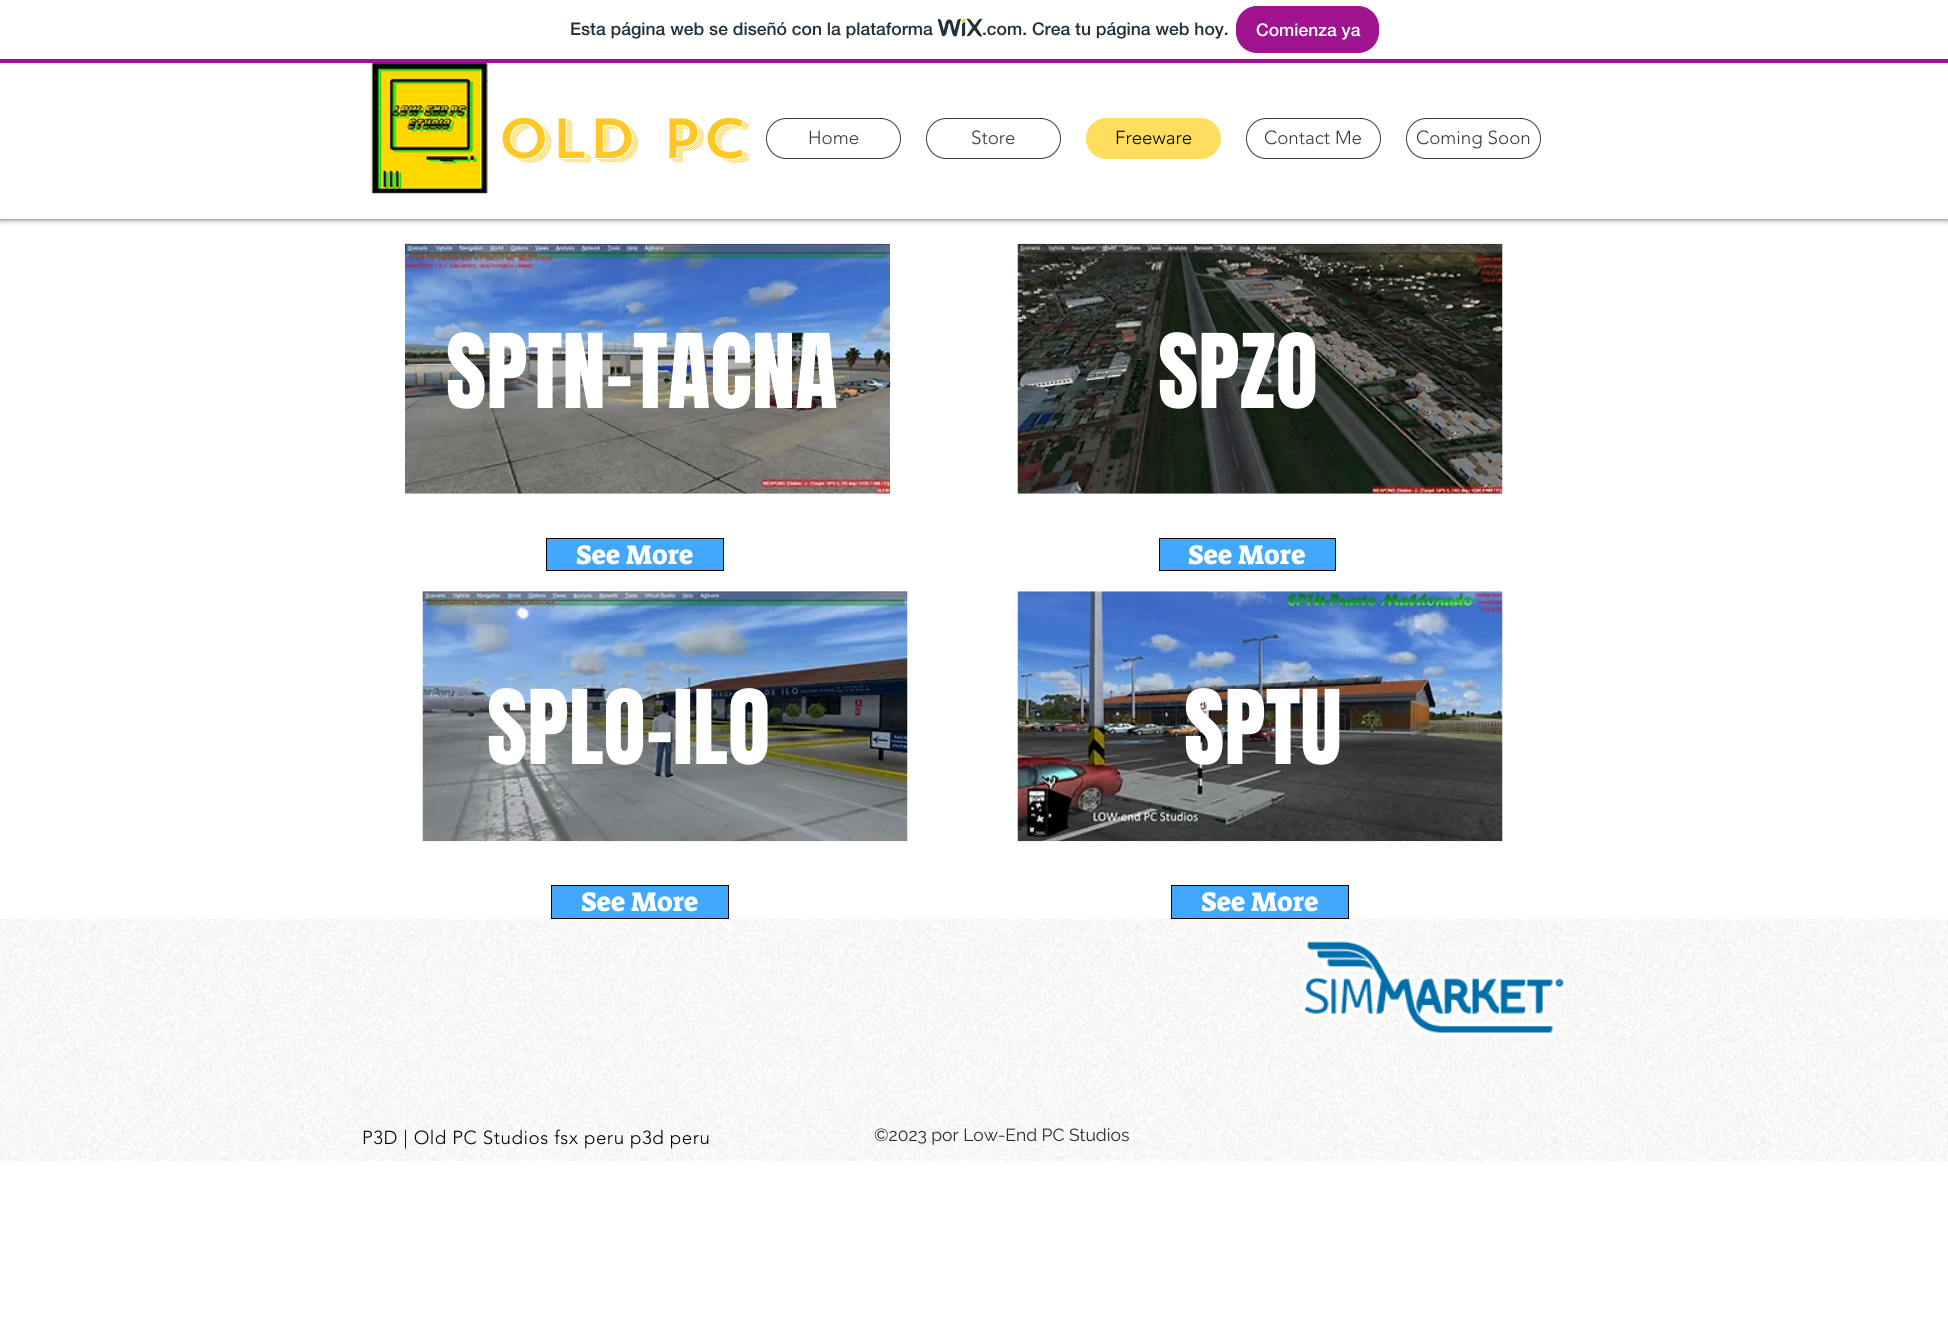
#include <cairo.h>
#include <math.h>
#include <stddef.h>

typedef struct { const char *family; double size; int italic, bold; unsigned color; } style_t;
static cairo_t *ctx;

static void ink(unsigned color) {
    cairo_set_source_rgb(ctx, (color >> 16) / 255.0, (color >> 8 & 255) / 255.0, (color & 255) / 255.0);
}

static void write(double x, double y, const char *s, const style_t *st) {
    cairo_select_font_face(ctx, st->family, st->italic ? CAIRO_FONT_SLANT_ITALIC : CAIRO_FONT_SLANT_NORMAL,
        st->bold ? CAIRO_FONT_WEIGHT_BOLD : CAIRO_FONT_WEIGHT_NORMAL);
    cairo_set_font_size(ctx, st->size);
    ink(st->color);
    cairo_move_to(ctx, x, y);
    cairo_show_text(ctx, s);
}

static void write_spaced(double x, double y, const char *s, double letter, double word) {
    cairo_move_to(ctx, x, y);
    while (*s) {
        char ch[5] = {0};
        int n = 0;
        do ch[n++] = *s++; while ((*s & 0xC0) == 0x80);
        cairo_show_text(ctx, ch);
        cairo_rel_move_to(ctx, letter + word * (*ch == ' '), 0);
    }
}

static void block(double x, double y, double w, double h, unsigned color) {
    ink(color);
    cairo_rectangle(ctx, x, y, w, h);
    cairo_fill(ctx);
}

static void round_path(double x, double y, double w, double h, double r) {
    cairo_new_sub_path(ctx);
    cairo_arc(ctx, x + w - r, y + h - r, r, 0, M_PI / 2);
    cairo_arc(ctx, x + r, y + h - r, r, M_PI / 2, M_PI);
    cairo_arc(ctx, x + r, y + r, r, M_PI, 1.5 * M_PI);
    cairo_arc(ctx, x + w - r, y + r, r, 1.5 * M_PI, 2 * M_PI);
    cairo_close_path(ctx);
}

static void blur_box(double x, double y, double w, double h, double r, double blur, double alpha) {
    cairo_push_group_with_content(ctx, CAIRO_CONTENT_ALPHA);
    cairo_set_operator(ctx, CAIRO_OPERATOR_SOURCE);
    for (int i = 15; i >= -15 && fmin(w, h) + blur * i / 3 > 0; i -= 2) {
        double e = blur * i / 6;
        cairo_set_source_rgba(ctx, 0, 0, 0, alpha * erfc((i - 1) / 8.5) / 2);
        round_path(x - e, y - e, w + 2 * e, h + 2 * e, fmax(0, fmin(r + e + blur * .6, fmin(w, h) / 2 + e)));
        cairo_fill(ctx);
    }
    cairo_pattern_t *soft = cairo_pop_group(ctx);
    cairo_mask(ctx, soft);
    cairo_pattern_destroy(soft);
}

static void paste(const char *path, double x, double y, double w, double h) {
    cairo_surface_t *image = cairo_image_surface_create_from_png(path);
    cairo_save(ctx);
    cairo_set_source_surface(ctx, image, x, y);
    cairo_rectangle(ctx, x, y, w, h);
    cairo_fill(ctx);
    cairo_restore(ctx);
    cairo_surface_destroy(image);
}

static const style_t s1 = {"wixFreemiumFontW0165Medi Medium", 17.5, 0, 0, 0x20303c};
static const style_t s2 = {"wixFreemiumFontW0165Medi Medium", 17.5, 0, 0, 0xffffff};
static const style_t s3 = {"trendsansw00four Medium", 56.25, 0, 0, 0xffc824};
static const style_t s4 = {"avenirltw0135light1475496 Light", 18.75, 0, 0, 0x383838};
static const style_t s5 = {"avenirltw0135light1475496 Light", 18.75, 0, 0, 0x000000};
static const style_t s6 = {"Anton", 87.5, 0, 0, 0xffffff};
static const style_t s7 = {"Suez One", 27.5, 0, 0, 0xffffff};
static const style_t s8 = {"Raleway", 17.5, 0, 0, 0x2a2a2a};

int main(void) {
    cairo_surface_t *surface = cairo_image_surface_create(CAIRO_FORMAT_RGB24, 1948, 1322);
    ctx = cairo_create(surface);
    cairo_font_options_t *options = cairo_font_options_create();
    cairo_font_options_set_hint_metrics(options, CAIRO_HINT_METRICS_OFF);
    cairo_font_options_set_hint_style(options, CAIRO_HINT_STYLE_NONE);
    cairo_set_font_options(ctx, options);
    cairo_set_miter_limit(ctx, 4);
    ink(0xffffff);
    cairo_paint(ctx);
    ink(0x000000);
    blur_box(0, 63, 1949, 156, 0, 3, 0.7);
    block(0, 56, 1948, 3, 0xffffff);
    block(0, 59, 1948, 4, 0xa0138e);
    write(570, 35, "Esta página web se diseñó con la plataforma", &s1);
    paste("pic1.png", 938, 18, 45, 19);
    write(982, 35, ".com. Crea tu página web hoy.", &s1);
    ink(0xa0138e);
    round_path(1236.5, 6.5, 142, 46, 20.5);
    cairo_fill_preserve(ctx);
    cairo_set_line_width(ctx, 1);
    cairo_stroke(ctx);
    write(1256, 36, "Comienza ya", &s2);
    block(0, 63, 1948, 156, 0xffffff);
    paste("pic2.png", 371, 63, 118, 131);
    write(497, 158, "OLD PC", &s3);
    round_path(766.5, 118.5, 134, 40, 20);
    ink(0x383838);
    cairo_stroke(ctx);
    write(808, 144, "Home", &s4);
    round_path(926.5, 118.5, 134, 40, 20);
    cairo_stroke(ctx);
    write(971, 144, "Store", &s4);
    ink(0xffde5f);
    round_path(1086, 118, 135, 41, 20.5);
    cairo_fill(ctx);
    write(1115, 144, "Freeware", &s5);
    round_path(1246.5, 118.5, 134, 40, 20);
    ink(0x383838);
    cairo_stroke(ctx);
    write(1264, 144, "Contact Me", &s4);
    round_path(1406.5, 118.5, 134, 40, 20);
    cairo_stroke(ctx);
    write(1416, 144, "Coming Soon", &s4);
    paste("pic3.png", 405, 243, 485, 251);
    paste("pic4.png", 1017, 243, 486, 251);
    write(446, 408, "SPTN-TACNA", &s6);
    write(1158, 408, "SPZO", &s6);
    ink(0x42a8fd);
    cairo_rectangle(ctx, 546.5, 538.5, 177, 32);
    cairo_fill_preserve(ctx);
    ink(0x000000);
    cairo_stroke(ctx);
    write(576, 564, "See More", &s7);
    ink(0x42a8fd);
    cairo_rectangle(ctx, 1159.5, 538.5, 176, 32);
    cairo_fill_preserve(ctx);
    ink(0x000000);
    cairo_stroke(ctx);
    write(1188, 564, "See More", &s7);
    paste("pic5.png", 422, 591, 486, 251);
    paste("pic6.png", 1017, 591, 486, 251);
    write(487, 764, "SPLO-ILO", &s6);
    write(1184, 764, "SPTU", &s6);
    ink(0x42a8fd);
    cairo_rectangle(ctx, 551.5, 885.5, 177, 33);
    cairo_fill_preserve(ctx);
    ink(0x000000);
    cairo_stroke(ctx);
    write(581, 911, "See More", &s7);
    ink(0x42a8fd);
    cairo_rectangle(ctx, 1171.5, 885.5, 177, 33);
    cairo_fill_preserve(ctx);
    ink(0x000000);
    cairo_stroke(ctx);
    write(1201, 911, "See More", &s7);
    paste("pic7.png", 0, 919, 1948, 242);
    paste("pic8.png", 1302, 938, 265, 99);
    cairo_select_font_face(ctx, "avenirltw0135light1475496 Light", CAIRO_FONT_SLANT_NORMAL, CAIRO_FONT_WEIGHT_NORMAL);
    cairo_set_font_size(ctx, 18.75);
    ink(0x000000);
    write_spaced(362, 1144, "P3D | Old PC Studios fsx peru p3d peru", 0.55, 0);
    write(874, 1141, "©2023 por Low-End PC Studios", &s8);
    cairo_surface_write_to_png(surface, "screenshot.png");
    cairo_font_options_destroy(options);
    cairo_destroy(ctx);
    cairo_surface_destroy(surface);
    return 0;
}
